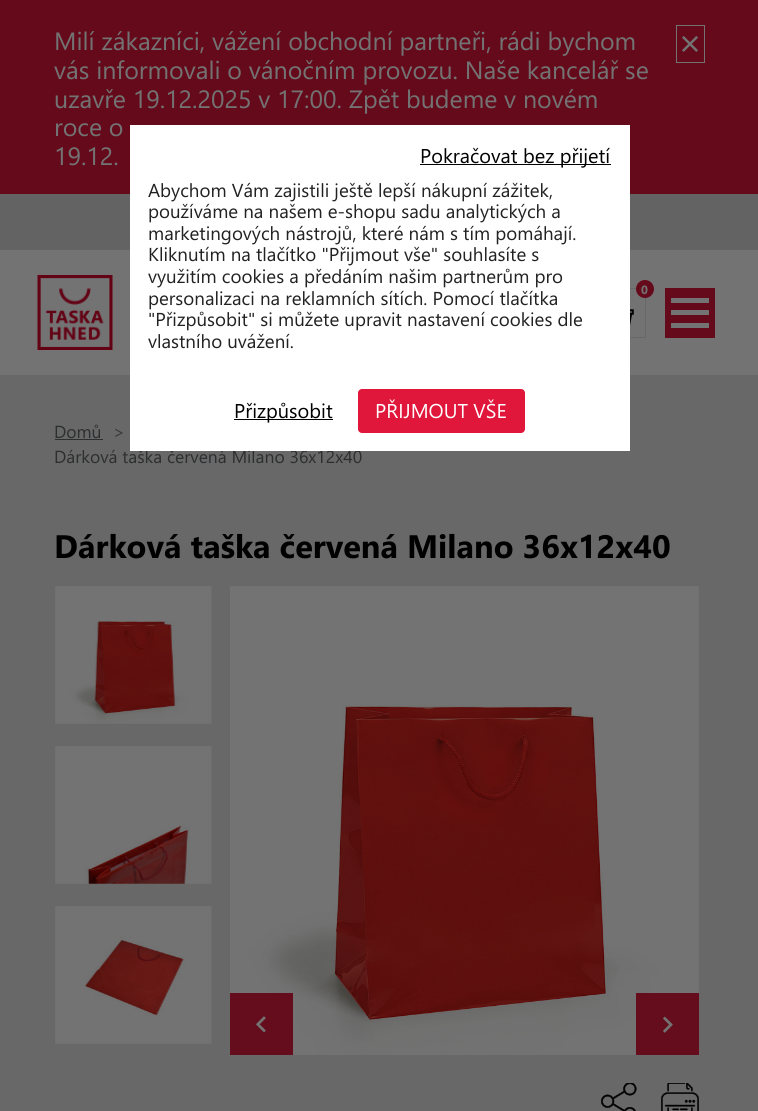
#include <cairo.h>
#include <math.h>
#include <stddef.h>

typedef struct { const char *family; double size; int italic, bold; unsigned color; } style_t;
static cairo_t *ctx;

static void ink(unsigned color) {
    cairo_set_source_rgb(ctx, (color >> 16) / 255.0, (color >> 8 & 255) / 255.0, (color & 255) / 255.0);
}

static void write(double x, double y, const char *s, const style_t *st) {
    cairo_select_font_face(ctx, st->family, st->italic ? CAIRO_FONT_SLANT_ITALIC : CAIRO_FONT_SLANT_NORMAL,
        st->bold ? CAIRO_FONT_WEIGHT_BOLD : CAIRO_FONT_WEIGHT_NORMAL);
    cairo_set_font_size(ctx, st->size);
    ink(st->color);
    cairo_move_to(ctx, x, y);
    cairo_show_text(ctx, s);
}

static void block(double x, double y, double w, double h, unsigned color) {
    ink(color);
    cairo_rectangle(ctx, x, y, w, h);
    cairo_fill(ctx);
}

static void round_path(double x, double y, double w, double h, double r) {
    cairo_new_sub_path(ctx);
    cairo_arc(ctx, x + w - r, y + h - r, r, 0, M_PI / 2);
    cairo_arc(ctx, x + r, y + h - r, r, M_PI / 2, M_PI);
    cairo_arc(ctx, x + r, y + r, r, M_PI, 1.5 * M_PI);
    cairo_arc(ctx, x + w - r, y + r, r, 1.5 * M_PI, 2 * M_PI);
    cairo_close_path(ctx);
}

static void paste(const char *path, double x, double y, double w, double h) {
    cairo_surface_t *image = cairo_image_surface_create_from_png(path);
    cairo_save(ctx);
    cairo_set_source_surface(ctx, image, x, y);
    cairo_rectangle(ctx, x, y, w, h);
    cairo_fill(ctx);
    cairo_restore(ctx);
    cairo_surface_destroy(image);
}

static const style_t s1 = {"Segoe UI", 25, 0, 0, 0x737373};
static const style_t s2 = {"Segoe UI", 38, 0, 0, 0x737373};
static const style_t s3 = {"Segoe UI", 12, 0, 1, 0x737373};
static const style_t s4 = {"Segoe UI", 17.5, 0, 0, 0x2d2e2f};
static const style_t s5 = {"Segoe UI", 20, 0, 0, 0x000000};
static const style_t s6 = {"Segoe UI", 18.75, 0, 0, 0x222222};
static const style_t s7 = {"Segoe UI", 20, 0, 0, 0xffffff};
static const style_t s8 = {"Segoe UI", 17.5, 0, 0, 0x373737};
static const style_t s9 = {"Segoe UI", 32.5, 0, 1, 0x000000};

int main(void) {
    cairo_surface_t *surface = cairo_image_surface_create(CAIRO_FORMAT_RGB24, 758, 1111);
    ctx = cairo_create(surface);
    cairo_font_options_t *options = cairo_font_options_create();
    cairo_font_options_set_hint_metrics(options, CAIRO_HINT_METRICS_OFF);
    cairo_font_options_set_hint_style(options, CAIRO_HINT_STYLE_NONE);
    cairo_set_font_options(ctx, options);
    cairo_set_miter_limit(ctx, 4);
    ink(0x686868);
    cairo_paint(ctx);
    block(0, 0, 758, 194, 0x650a1b);
    write(54, 50, "Milí zákazníci, vážení obchodní partneři, rádi bychom", &s1);
    write(54, 79, "vás informovali o vánočním provozu. Naše kancelář se", &s1);
    write(54, 108, "uzavře 19.12.2025 v 17:00. Zpět budeme v novém", &s1);
    write(54, 136, "roce o", &s1);
    write(54, 165, "19.12.", &s1);
    cairo_rectangle(ctx, 676.5, 25.5, 28, 37);
    cairo_set_line_width(ctx, 1);
    cairo_stroke(ctx);
    write(677, 55, "×", &s2);
    block(0, 194, 758, 56, 0x636363);
    block(0, 250, 758, 125, 0x737373);
    paste("pic1.png", 37, 275, 76, 75);
    cairo_rectangle(ctx, 596.5, 288.5, 49, 49);
    ink(0x686868);
    cairo_stroke(ctx);
    ink(0x650a1b);
    cairo_arc(ctx, 645, 289, 9, 0, 2 * M_PI);
    cairo_fill(ctx);
    write(641, 294, "0", &s3);
    paste("pic2.png", 630, 309, 4, 17);
    block(665, 288, 50, 50, 0x650a1b);
    block(671, 298, 38, 5, 0x737373);
    block(671, 310, 38, 5, 0x737373);
    block(671, 323, 38, 5, 0x737373);
    write(54, 463, "Dárková taška červená Milano 36x12x40", &s4);
    block(130, 125, 500, 326, 0xffffff);
    block(420, 164, 191, 1, 0x000000);
    write(420, 163, "Pokračovat bez přijetí", &s5);
    write(148, 197, "Abychom Vám zajistili ještě lepší nákupní zážitek,", &s6);
    write(148, 218, "používáme na našem e-shopu sadu analytických a", &s6);
    write(148, 240, "marketingových nástrojů, které nám s tím pomáhají.", &s6);
    write(148, 261, "Kliknutím na tlačítko \"Přijmout vše\" souhlasíte s", &s6);
    write(148, 283, "využitím cookies a předáním našim partnerům pro", &s6);
    write(148, 305, "personalizaci na reklamních sítích. Pomocí tlačítka", &s6);
    write(148, 326, "\"Přizpůsobit\" si můžete upravit nastavení cookies dle", &s6);
    write(148, 348, "vlastního uvážení.", &s6);
    block(234, 419, 99, 1, 0x000000);
    write(234, 418, "Přizpůsobit", &s5);
    ink(0xe0173b);
    round_path(358, 389, 167, 44, 4);
    cairo_fill(ctx);
    write(375, 418, "PŘIJMOUT VŠE", &s7);
    write(54, 438, "Domů", &s4);
    block(55, 439, 48, 1, 0x2d2e2f);
    write(113, 438, ">", &s8);
    write(54, 558, "Dárková taška červená Milano 36x12x40", &s9);
    paste("pic3.png", 55, 586, 157, 138);
    paste("pic4.png", 55, 746, 157, 138);
    paste("pic5.png", 55, 906, 157, 138);
    paste("pic6.png", 230, 586, 469, 469);
    block(230, 993, 63, 62, 0x650d1c);
    paste("pic7.png", 255, 1016, 11, 17);
    block(636, 993, 63, 62, 0x650d1c);
    paste("pic8.png", 663, 1016, 10, 17);
    paste("pic9.png", 601, 1083, 36, 28);
    paste("pic10.png", 661, 1083, 38, 28);
    cairo_surface_write_to_png(surface, "screenshot.png");
    cairo_font_options_destroy(options);
    cairo_destroy(ctx);
    cairo_surface_destroy(surface);
    return 0;
}
